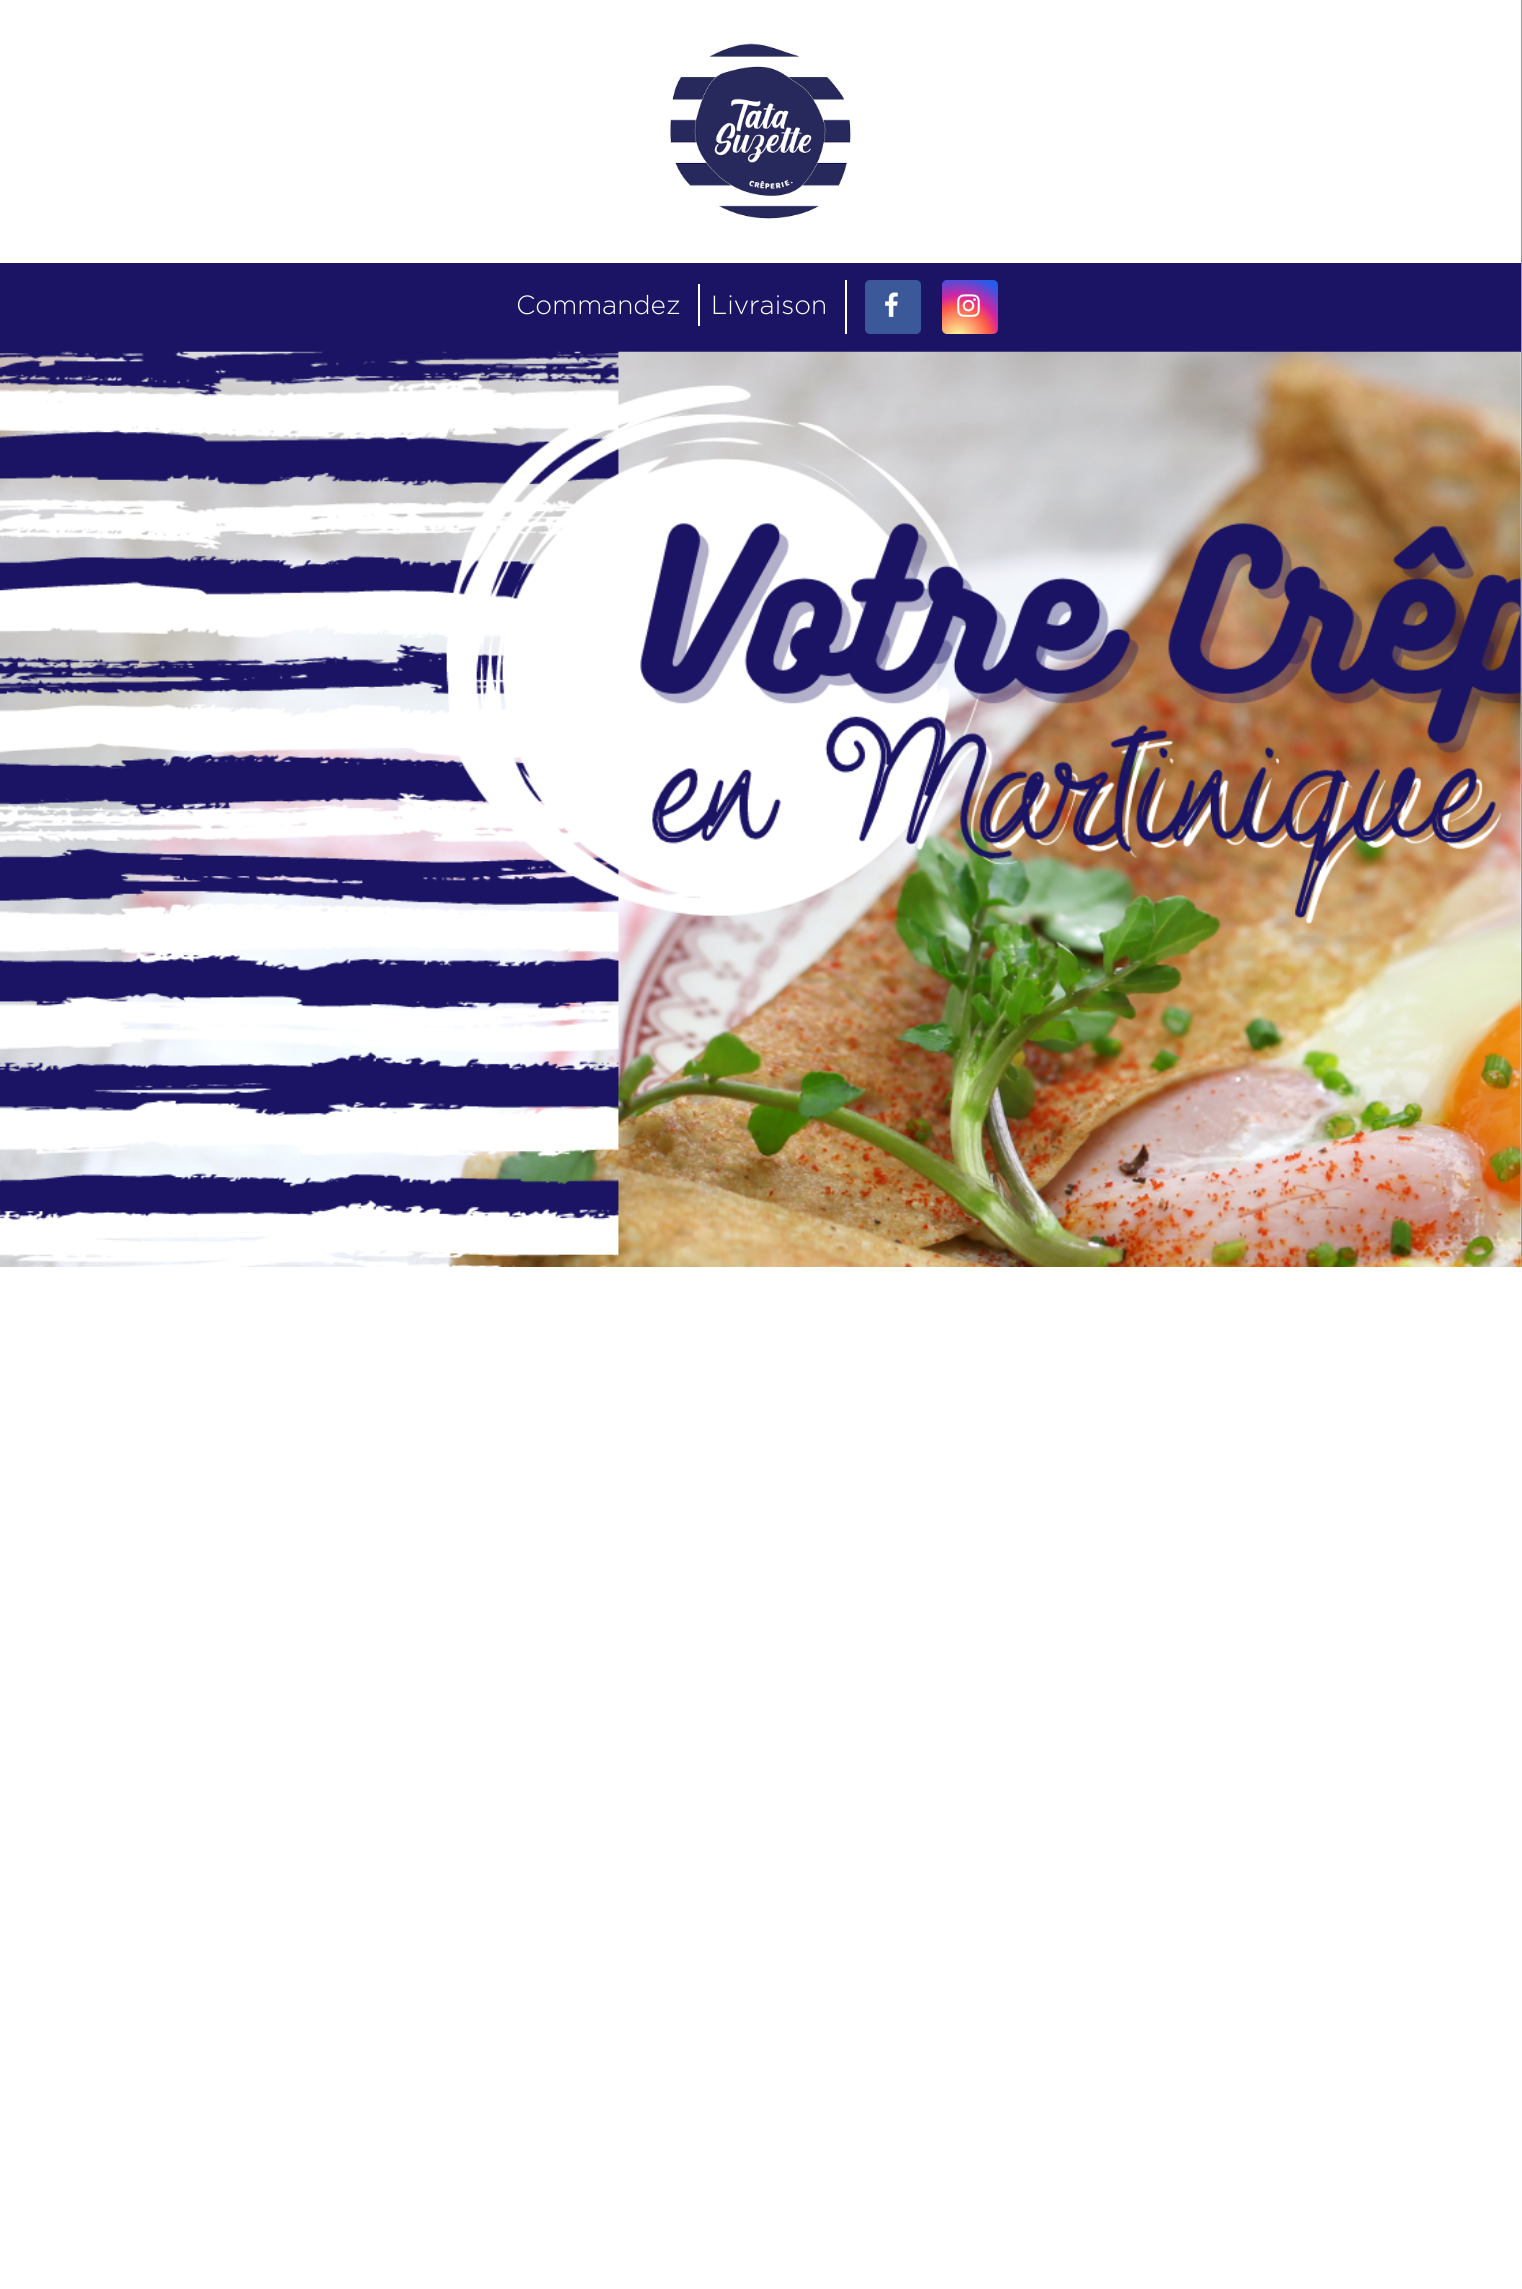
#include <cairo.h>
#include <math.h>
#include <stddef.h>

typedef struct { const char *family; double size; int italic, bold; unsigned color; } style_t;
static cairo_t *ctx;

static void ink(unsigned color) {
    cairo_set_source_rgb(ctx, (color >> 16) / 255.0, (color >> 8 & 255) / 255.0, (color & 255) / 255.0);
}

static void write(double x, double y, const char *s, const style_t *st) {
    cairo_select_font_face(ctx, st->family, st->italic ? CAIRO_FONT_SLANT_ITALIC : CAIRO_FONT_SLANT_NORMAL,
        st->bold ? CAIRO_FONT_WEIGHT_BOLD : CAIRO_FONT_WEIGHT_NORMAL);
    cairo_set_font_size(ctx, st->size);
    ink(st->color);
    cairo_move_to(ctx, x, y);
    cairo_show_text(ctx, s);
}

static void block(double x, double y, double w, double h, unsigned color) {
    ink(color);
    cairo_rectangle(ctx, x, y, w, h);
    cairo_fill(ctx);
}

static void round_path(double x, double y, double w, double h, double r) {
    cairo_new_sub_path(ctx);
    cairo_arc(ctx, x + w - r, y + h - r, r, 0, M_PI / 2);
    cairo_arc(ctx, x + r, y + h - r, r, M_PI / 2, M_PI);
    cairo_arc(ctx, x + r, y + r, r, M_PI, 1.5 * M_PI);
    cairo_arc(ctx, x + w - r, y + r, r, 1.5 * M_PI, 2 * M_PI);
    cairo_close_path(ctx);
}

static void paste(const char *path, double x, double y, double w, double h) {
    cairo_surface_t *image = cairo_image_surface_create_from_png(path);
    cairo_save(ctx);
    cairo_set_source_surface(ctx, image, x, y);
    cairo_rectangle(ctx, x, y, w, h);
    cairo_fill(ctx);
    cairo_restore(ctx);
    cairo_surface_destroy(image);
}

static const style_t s1 = {"Gotham Light", 26.25, 0, 0, 0xffffff};

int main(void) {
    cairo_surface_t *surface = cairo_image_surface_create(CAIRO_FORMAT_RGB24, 1522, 2289);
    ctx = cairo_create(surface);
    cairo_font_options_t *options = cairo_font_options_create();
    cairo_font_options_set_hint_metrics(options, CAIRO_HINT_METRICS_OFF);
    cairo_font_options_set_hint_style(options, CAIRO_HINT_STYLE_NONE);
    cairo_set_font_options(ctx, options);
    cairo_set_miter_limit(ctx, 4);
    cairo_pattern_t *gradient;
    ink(0xffffff);
    cairo_paint(ctx);
    block(1521, 0, 1, 1267, 0x999999);
    paste("pic1.png", 670, 43, 181, 176);
    block(0, 263, 1521, 89, 0x1b1464);
    write(516, 314, "Commandez", &s1);
    block(698, 284, 2, 42, 0xffffff);
    write(711, 314, "Livraison", &s1);
    block(845, 280, 2, 54, 0xffffff);
    ink(0x3b5998);
    round_path(865, 280, 56, 54, 5);
    cairo_fill(ctx);
    paste("pic2.png", 885, 292, 13, 25);
    gradient = cairo_pattern_create_radial(958, 338, 0, 958, 338, 70);
    cairo_pattern_add_color_stop_rgba(gradient, 0, 0.992, 0.957, 0.592, 1);
    cairo_pattern_add_color_stop_rgba(gradient, 0.05, 0.992, 0.957, 0.592, 1);
    cairo_pattern_add_color_stop_rgba(gradient, 0.45, 0.992, 0.349, 0.286, 1);
    cairo_pattern_add_color_stop_rgba(gradient, 0.6, 0.839, 0.141, 0.624, 1);
    cairo_pattern_add_color_stop_rgba(gradient, 0.9, 0.157, 0.353, 0.922, 1);
    cairo_set_source(ctx, gradient);
    cairo_pattern_destroy(gradient);
    round_path(942, 280, 56, 54, 5);
    cairo_fill(ctx);
    paste("pic3.png", 957, 294, 23, 23);
    paste("pic4.png", 0, 351, 1521, 916);
    cairo_surface_write_to_png(surface, "screenshot.png");
    cairo_font_options_destroy(options);
    cairo_destroy(ctx);
    cairo_surface_destroy(surface);
    return 0;
}
